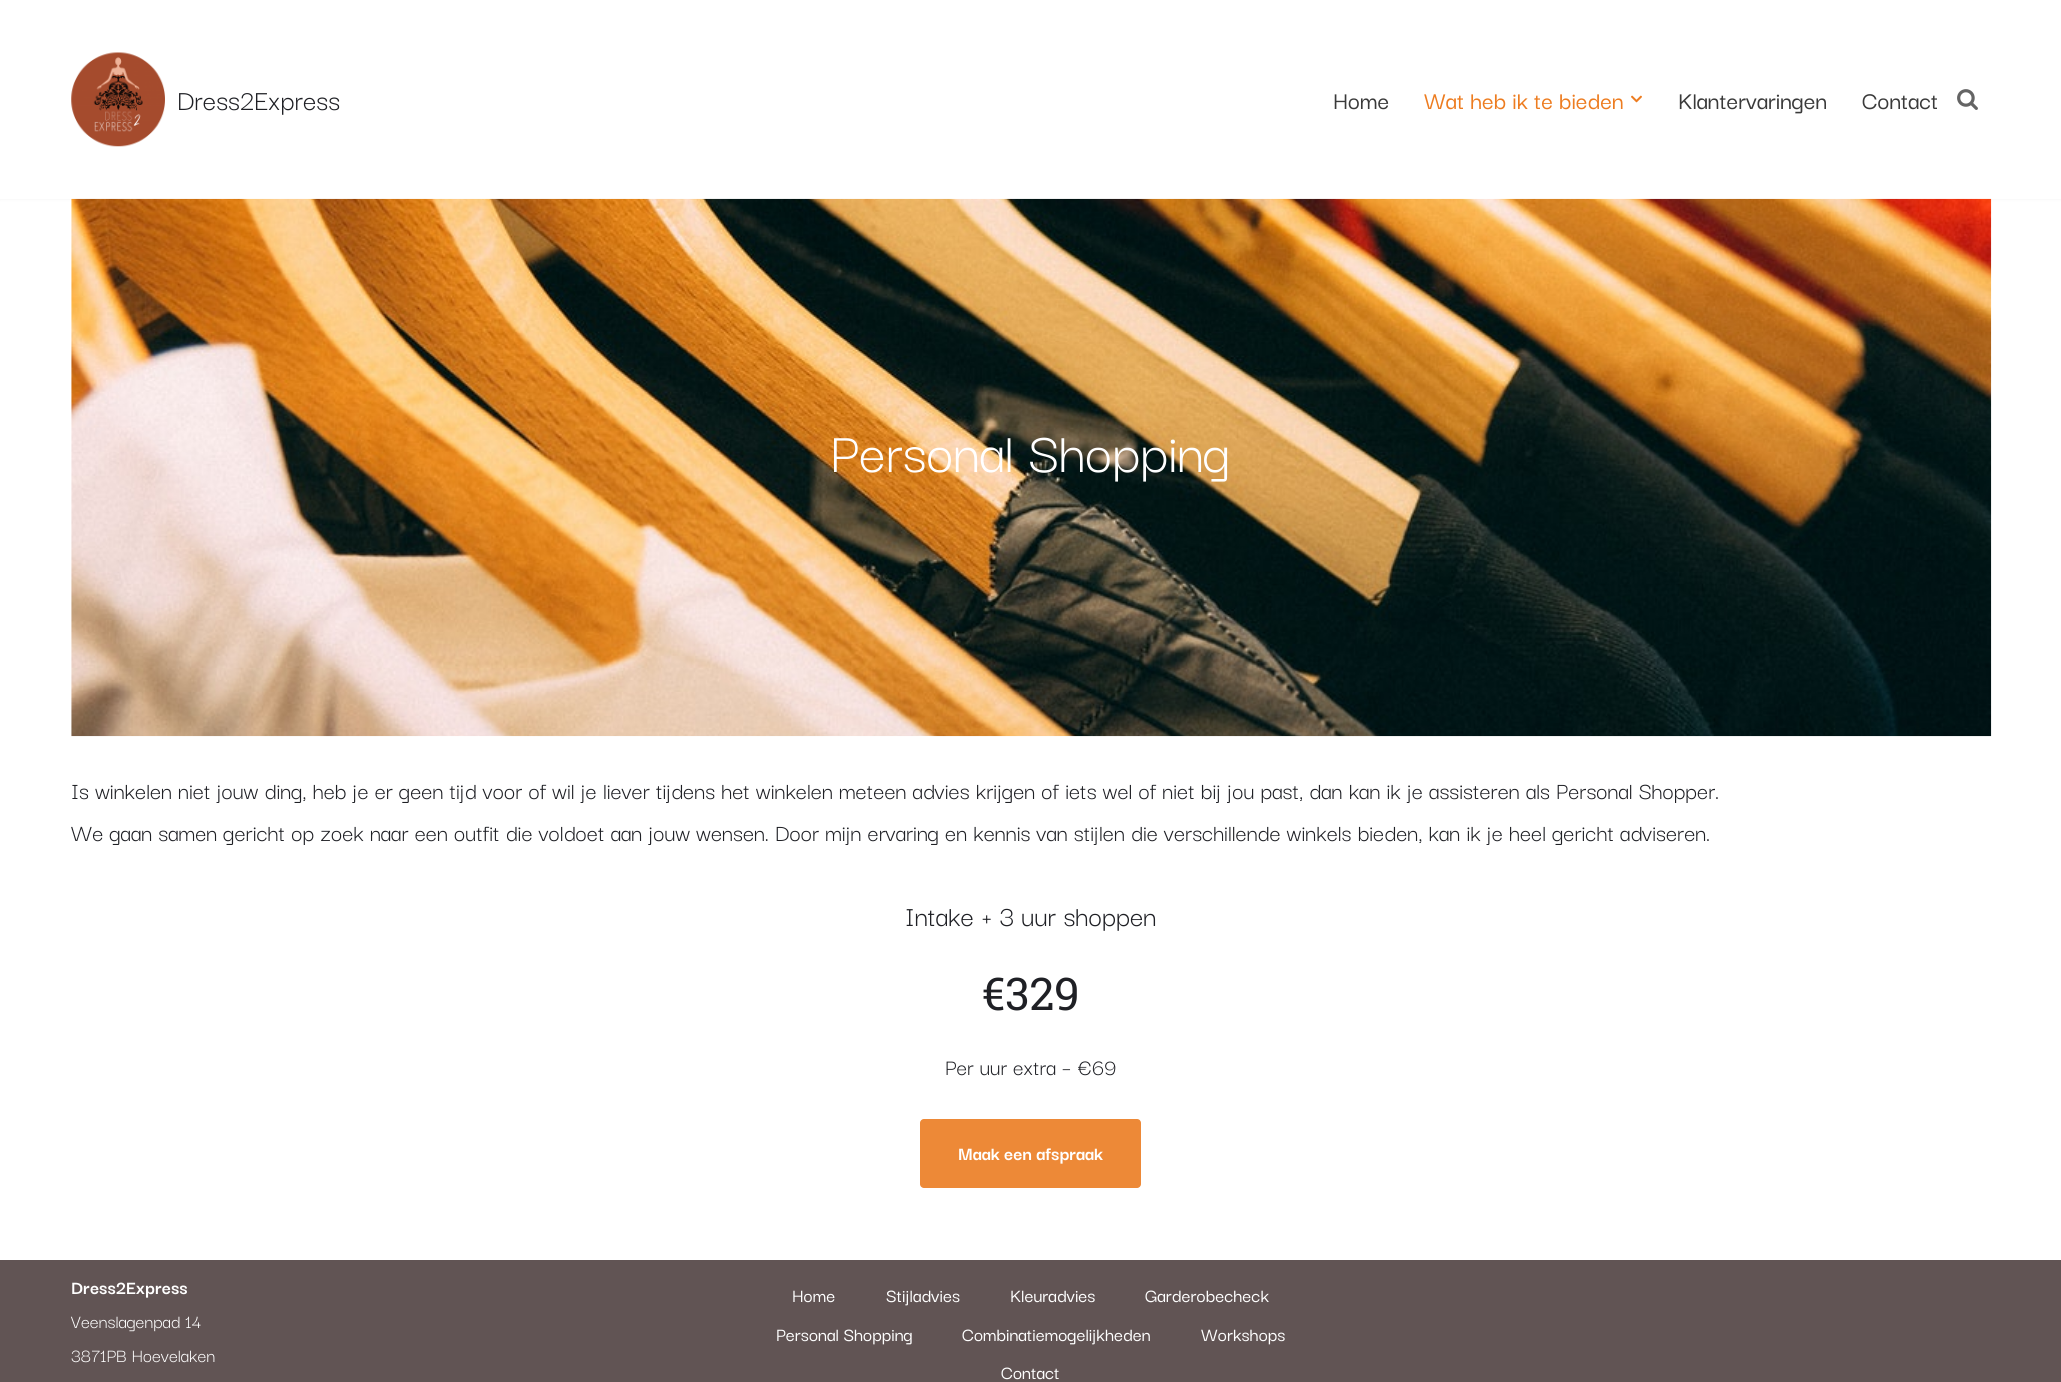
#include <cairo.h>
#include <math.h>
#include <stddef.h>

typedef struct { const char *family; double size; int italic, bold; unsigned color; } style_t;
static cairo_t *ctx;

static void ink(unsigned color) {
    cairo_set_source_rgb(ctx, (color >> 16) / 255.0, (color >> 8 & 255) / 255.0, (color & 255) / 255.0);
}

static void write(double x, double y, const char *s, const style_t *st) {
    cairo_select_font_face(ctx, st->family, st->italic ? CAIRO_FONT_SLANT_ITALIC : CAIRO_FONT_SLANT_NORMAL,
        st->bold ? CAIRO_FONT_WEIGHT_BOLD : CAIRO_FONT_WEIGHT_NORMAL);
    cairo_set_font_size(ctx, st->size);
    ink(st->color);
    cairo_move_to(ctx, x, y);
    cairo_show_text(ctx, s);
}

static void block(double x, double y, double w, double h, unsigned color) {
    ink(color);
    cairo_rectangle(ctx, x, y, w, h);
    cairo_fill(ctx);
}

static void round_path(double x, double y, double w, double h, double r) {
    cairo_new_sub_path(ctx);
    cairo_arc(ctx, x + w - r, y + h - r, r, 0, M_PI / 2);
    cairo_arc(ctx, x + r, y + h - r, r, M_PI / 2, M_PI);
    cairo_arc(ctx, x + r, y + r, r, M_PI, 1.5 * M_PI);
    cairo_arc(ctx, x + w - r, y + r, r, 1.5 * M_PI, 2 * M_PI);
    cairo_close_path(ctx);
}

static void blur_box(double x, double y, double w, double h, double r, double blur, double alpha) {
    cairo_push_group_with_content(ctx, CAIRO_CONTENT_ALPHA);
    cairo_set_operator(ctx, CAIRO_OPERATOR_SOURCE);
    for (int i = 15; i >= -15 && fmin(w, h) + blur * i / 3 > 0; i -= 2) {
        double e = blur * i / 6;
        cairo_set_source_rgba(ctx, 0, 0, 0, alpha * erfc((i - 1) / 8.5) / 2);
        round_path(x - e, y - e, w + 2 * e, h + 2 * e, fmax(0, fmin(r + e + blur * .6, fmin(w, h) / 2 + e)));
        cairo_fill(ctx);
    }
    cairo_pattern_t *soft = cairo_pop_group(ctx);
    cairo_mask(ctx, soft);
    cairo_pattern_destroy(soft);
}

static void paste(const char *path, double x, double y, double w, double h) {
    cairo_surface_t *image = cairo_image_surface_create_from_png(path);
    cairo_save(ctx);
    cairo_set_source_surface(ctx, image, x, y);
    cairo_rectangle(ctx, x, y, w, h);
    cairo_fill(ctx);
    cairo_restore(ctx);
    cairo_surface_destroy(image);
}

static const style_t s1 = {"Darker Grotesque", 30, 0, 0, 0x1f2025};
static const style_t s2 = {"Darker Grotesque Medium", 26, 0, 0, 0x3a3a3a};
static const style_t s3 = {"Darker Grotesque Medium", 26, 0, 0, 0xed7c20};
static const style_t s4 = {"Darker Grotesque", 60, 0, 0, 0xffffff};
static const style_t s5 = {"Darker Grotesque", 25, 0, 0, 0x1f2025};
static const style_t s6 = {"Roboto Slab", 45, 0, 0, 0x1f2025};
static const style_t s7 = {"Darker Grotesque", 23.75, 0, 0, 0x1f2025};
static const style_t s8 = {"Darker Grotesque", 20, 0, 1, 0xffffff};
static const style_t s9 = {"Darker Grotesque", 20, 0, 0, 0xffffff};
static const style_t s10 = {"Darker Grotesque Medium", 20, 0, 0, 0xffffff};

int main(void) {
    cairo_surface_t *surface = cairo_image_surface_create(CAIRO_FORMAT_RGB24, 2061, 1382);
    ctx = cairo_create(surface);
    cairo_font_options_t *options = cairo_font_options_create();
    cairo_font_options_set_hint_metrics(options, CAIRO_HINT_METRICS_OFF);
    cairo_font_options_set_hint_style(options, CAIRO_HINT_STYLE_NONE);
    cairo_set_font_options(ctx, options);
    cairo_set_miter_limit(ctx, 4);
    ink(0xffffff);
    cairo_paint(ctx);
    ink(0x000000);
    blur_box(0, -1, 2061, 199, 0, 2, 0.1);
    block(0, 0, 2061, 199, 0xffffff);
    paste("pic1.png", 71, 52, 94, 95);
    write(177, 110, "Dress2Express", &s1);
    write(1333, 109, "Home", &s2);
    write(1424, 109, "Wat heb ik te bieden", &s3);
    paste("pic2.png", 1631, 95, 11, 8);
    write(1678, 109, "Klantervaringen", &s2);
    write(1862, 109, "Contact", &s2);
    paste("pic3.png", 1957, 89, 21, 21);
    paste("pic4.png", 71, 198, 1921, 539);
    write(830, 472, "Personal Shopping", &s4);
    write(71, 799, "Is winkelen niet jouw ding, heb je er geen tijd voor of wil je liever tijdens het winkelen meteen advies krijgen of iets wel of niet bij jou past, dan kan ik je assisteren als Personal Shopper.", &s5);
    write(71, 841, "We gaan samen gericht op zoek naar een outfit die voldoet aan jouw wensen. Door mijn ervaring en kennis van stijlen die verschillende winkels bieden, kan ik je heel gericht adviseren.", &s5);
    write(905, 926, "Intake + 3 uur shoppen", &s1);
    write(982, 1010, "€329", &s6);
    write(945, 1075, "Per uur extra – €69", &s7);
    ink(0xed8937);
    round_path(920, 1119, 221, 69, 4);
    cairo_fill(ctx);
    write(958, 1160, "Maak een afspraak", &s8);
    block(0, 1260, 2061, 122, 0x615454);
    write(71, 1294, "Dress2Express", &s8);
    write(71, 1328, "Veenslagenpad 14", &s9);
    write(71, 1362, "3871PB Hoevelaken", &s9);
    write(792, 1302, "Home", &s10);
    write(886, 1302, "Stijladvies", &s10);
    write(1010, 1302, "Kleuradvies", &s10);
    write(1145, 1302, "Garderobecheck", &s10);
    write(776, 1341, "Personal Shopping", &s10);
    write(962, 1341, "Combinatiemogelijkheden", &s10);
    write(1201, 1341, "Workshops", &s10);
    write(1001, 1379, "Contact", &s10);
    cairo_surface_write_to_png(surface, "screenshot.png");
    cairo_font_options_destroy(options);
    cairo_destroy(ctx);
    cairo_surface_destroy(surface);
    return 0;
}
